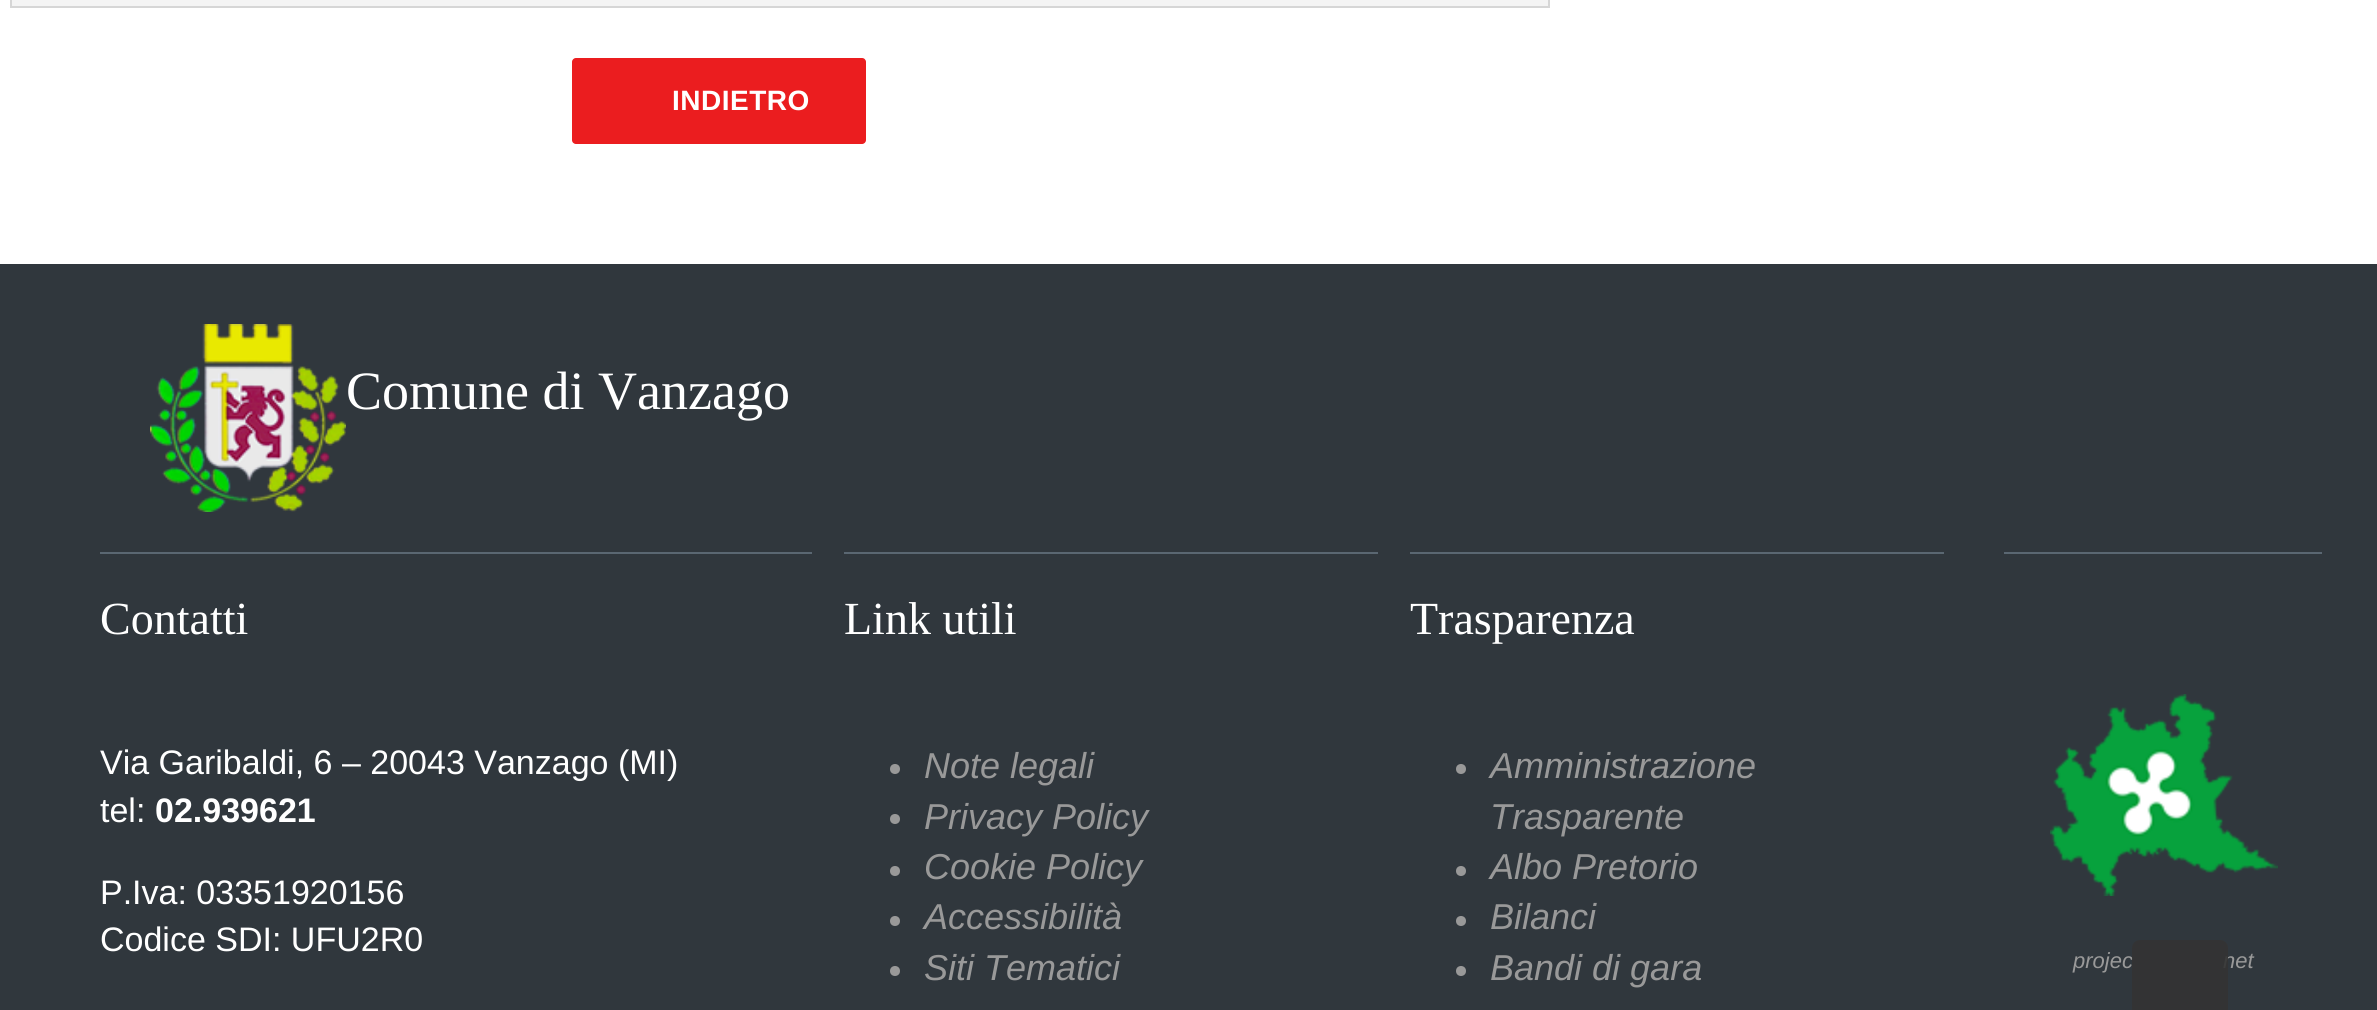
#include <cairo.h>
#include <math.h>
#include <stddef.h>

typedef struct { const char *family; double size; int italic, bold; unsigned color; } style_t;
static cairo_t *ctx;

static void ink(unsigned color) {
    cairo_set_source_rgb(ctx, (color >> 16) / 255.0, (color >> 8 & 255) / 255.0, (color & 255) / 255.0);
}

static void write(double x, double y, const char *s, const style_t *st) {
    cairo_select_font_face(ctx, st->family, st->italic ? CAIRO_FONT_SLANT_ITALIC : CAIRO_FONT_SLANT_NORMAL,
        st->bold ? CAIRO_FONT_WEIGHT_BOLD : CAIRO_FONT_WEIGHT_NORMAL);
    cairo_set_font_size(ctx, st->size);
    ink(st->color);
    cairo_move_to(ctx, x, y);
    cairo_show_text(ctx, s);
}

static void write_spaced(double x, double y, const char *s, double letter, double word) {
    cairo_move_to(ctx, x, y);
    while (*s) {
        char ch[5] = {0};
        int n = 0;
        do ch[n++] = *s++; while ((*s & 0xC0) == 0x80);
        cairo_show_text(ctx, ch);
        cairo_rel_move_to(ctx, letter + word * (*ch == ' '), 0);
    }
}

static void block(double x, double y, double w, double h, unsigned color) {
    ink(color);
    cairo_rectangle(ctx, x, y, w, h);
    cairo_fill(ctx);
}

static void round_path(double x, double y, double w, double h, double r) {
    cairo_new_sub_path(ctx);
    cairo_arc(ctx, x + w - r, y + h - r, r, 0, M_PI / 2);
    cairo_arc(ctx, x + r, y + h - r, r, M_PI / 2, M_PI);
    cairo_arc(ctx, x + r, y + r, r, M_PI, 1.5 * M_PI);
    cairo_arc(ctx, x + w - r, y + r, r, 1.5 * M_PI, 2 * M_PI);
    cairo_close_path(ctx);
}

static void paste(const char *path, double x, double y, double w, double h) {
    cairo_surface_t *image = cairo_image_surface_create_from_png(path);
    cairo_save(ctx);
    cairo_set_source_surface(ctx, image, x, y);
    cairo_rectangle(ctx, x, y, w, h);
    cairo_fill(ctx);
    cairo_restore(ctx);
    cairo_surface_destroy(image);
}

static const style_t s1 = {"Liberation Serif", 54, 0, 0, 0xffffff};
static const style_t s2 = {"Liberation Serif", 46, 0, 0, 0xffffff};
static const style_t s3 = {"Liberation Sans", 34, 0, 0, 0xffffff};
static const style_t s4 = {"Liberation Sans", 34, 0, 1, 0xffffff};
static const style_t s5 = {"Liberation Sans", 36, 1, 0, 0x999999};
static const style_t s6 = {"Liberation Sans", 22, 1, 0, 0x999999};

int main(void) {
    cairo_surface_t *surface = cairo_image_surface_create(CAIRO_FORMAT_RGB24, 2377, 1010);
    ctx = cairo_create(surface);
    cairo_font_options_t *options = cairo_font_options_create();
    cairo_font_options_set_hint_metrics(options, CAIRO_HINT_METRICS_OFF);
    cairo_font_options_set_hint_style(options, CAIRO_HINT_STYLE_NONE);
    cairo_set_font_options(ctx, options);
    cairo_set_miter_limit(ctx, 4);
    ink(0xffffff);
    cairo_paint(ctx);
    ink(0xf4f4f4);
    cairo_rectangle(ctx, 11, -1, 1538, 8);
    cairo_fill_preserve(ctx);
    ink(0xd6d6d6);
    cairo_stroke(ctx);
    ink(0xeb1d1f);
    round_path(572, 58, 294, 86, 4);
    cairo_fill(ctx);
    cairo_select_font_face(ctx, "Liberation Sans", CAIRO_FONT_SLANT_NORMAL, CAIRO_FONT_WEIGHT_BOLD);
    cairo_set_font_size(ctx, 28);
    ink(0xffffff);
    write_spaced(672, 110, "INDIETRO", 0.5, 0);
    block(0, 264, 2377, 746, 0x30373d);
    paste("pic1.png", 150, 324, 196, 188);
    write(346, 409, "Comune di Vanzago", &s1);
    block(100, 552, 712, 2, 0x5a6772);
    write(100, 634, "Contatti", &s2);
    write(100, 774, "Via Garibaldi, 6 – 20043 Vanzago (MI)", &s3);
    write(100, 822, "tel:", &s3);
    write(155, 822, "02.939621", &s4);
    write(100, 904, "P.Iva: 03351920156", &s3);
    write(100, 951, "Codice SDI: UFU2R0", &s3);
    block(844, 552, 534, 2, 0x5a6772);
    write(844, 634, "Link utili", &s2);
    ink(0x999999);
    cairo_new_path(ctx);
    cairo_arc(ctx, 895, 769, 5, 0, 2 * M_PI);
    cairo_fill(ctx);
    write(924, 778, "Note legali", &s5);
    cairo_new_path(ctx);
    cairo_arc(ctx, 895, 819, 5, 0, 2 * M_PI);
    cairo_fill(ctx);
    write(924, 829, "Privacy Policy", &s5);
    cairo_new_path(ctx);
    cairo_arc(ctx, 895, 871, 5, 0, 2 * M_PI);
    cairo_fill(ctx);
    write(924, 879, "Cookie Policy", &s5);
    cairo_new_path(ctx);
    cairo_arc(ctx, 895, 921, 5, 0, 2 * M_PI);
    cairo_fill(ctx);
    write(924, 929, "Accessibilità", &s5);
    cairo_new_path(ctx);
    cairo_arc(ctx, 895, 971, 5, 0, 2 * M_PI);
    cairo_fill(ctx);
    write(924, 980, "Siti Tematici", &s5);
    block(1410, 552, 534, 2, 0x5a6772);
    write(1410, 634, "Trasparenza", &s2);
    ink(0x999999);
    cairo_new_path(ctx);
    cairo_arc(ctx, 1461, 769, 5, 0, 2 * M_PI);
    cairo_fill(ctx);
    write(1490, 778, "Amministrazione", &s5);
    write(1490, 829, "Trasparente", &s5);
    cairo_new_path(ctx);
    cairo_arc(ctx, 1461, 871, 5, 0, 2 * M_PI);
    cairo_fill(ctx);
    write(1490, 879, "Albo Pretorio", &s5);
    cairo_new_path(ctx);
    cairo_arc(ctx, 1461, 921, 5, 0, 2 * M_PI);
    cairo_fill(ctx);
    write(1490, 929, "Bilanci", &s5);
    cairo_new_path(ctx);
    cairo_arc(ctx, 1461, 971, 5, 0, 2 * M_PI);
    cairo_fill(ctx);
    write(1490, 980, "Bandi di gara", &s5);
    block(2004, 552, 318, 2, 0x5a6772);
    paste("pic2.png", 2050, 694, 228, 202);
    write(2073, 968, "projec", &s6);
    write(2223, 968, "net", &s6);
    cairo_set_source_rgba(ctx, 0.2, 0.2, 0.2, 0.9);
    cairo_new_path(ctx);
    cairo_move_to(ctx, 2140, 940);
    cairo_line_to(ctx, 2220, 940);
    cairo_curve_to(ctx, 2224.5, 940, 2228, 943.5, 2228, 948);
    cairo_line_to(ctx, 2228, 1010);
    cairo_line_to(ctx, 2132, 1010);
    cairo_line_to(ctx, 2132, 948);
    cairo_curve_to(ctx, 2132, 943.5, 2135.5, 940, 2140, 940);
    cairo_close_path(ctx);
    cairo_fill(ctx);
    cairo_surface_write_to_png(surface, "screenshot.png");
    cairo_font_options_destroy(options);
    cairo_destroy(ctx);
    cairo_surface_destroy(surface);
    return 0;
}
